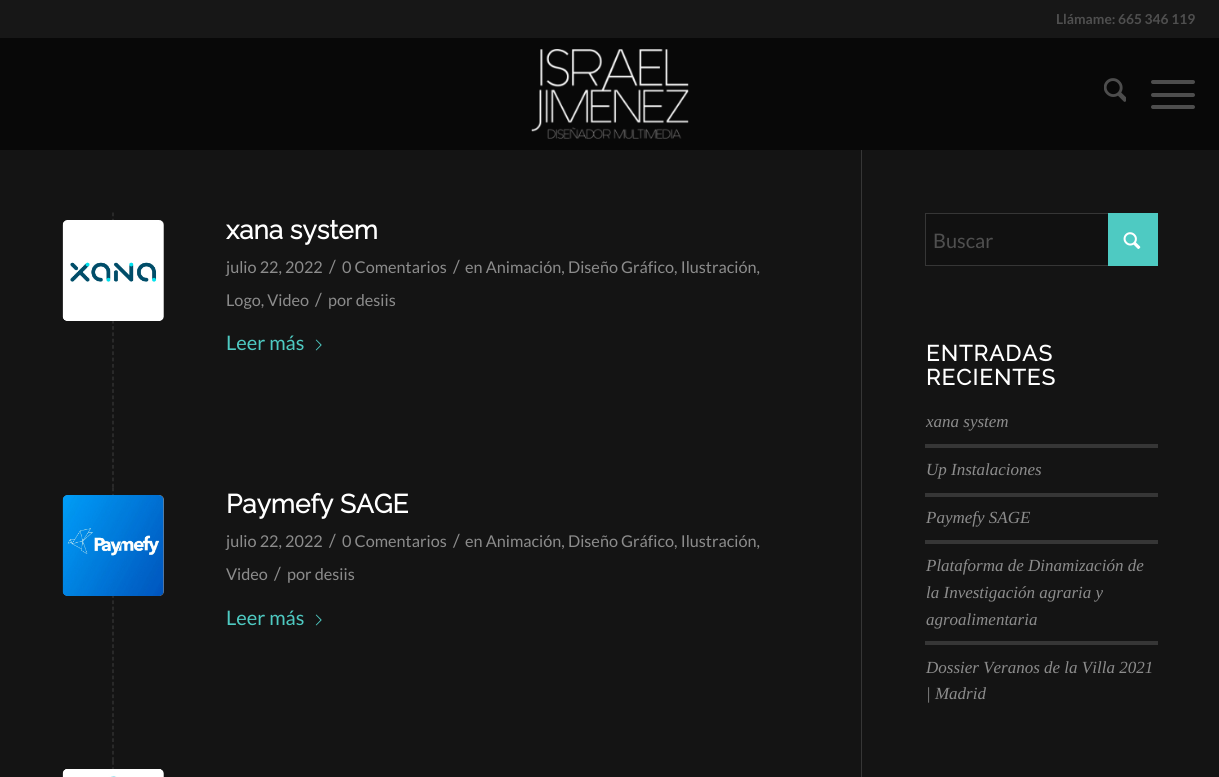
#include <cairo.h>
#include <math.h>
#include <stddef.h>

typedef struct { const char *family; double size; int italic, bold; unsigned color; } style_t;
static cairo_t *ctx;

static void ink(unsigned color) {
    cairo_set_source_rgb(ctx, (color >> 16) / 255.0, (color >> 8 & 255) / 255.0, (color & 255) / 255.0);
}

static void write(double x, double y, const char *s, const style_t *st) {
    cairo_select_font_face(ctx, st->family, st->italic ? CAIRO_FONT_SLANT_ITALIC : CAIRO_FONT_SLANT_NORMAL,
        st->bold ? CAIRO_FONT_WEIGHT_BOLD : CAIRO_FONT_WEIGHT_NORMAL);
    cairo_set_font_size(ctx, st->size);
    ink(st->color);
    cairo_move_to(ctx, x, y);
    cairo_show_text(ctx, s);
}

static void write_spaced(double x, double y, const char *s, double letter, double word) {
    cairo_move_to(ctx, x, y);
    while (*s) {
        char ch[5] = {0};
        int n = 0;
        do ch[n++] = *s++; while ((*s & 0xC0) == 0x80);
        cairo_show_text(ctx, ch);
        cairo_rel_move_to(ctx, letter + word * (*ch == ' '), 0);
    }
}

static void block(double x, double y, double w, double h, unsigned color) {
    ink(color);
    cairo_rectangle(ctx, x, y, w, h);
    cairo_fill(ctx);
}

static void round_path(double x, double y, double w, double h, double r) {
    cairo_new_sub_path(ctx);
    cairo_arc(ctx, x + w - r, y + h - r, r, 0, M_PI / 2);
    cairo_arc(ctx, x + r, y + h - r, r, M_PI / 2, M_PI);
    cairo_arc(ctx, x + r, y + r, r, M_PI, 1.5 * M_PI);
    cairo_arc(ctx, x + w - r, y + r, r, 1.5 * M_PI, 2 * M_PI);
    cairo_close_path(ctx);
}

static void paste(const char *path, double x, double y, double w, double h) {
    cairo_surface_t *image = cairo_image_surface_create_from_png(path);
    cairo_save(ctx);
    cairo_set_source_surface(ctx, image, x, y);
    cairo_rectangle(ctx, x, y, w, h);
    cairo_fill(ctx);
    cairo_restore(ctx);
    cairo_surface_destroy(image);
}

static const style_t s1 = {"Lato", 13.75, 0, 1, 0x4f4f4f};
static const style_t s2 = {"Raleway", 26.25, 0, 1, 0xffffff};
static const style_t s3 = {"Lato", 16.25, 0, 0, 0x8c8c8c};
static const style_t s4 = {"Lato", 18, 0, 0, 0x8c8c8c};
static const style_t s5 = {"Lato", 20, 0, 0, 0x4ecac2};
static const style_t s6 = {"Lato", 20, 0, 0, 0x4f4f4f};
static const style_t s7 = {"Liberation Serif", 17, 1, 0, 0x8c8c8c};

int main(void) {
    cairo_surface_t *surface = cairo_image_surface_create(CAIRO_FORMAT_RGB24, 1219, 777);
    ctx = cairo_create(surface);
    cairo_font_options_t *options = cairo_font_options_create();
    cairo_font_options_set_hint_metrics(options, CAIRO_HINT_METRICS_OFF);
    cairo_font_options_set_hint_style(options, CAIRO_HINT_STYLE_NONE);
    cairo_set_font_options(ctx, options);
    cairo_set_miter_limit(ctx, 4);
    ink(0x141414);
    cairo_paint(ctx);
    block(0, 0, 1219, 38, 0x171717);
    write(1056, 24, "Llámame: 665 346 119", &s1);
    block(0, 38, 1219, 112, 0x080808);
    paste("pic1.png", 531, 49, 158, 90);
    paste("pic2.png", 1104, 78, 22, 24);
    ink(0x4d4d4d);
    round_path(1151, 93, 44, 4, 2);
    cairo_fill(ctx);
    round_path(1151, 80, 44, 4, 2);
    cairo_fill(ctx);
    round_path(1151, 105, 44, 4, 2);
    cairo_fill(ctx);
    block(861, 150, 1, 627, 0x363636);
    cairo_new_path(ctx);
    cairo_move_to(ctx, 113, 212.5);
    cairo_line_to(ctx, 113, 487.5);
    cairo_set_line_width(ctx, 1.2);
    cairo_set_dash(ctx, (double[]){3.75, 2.56}, 2, 0);
    cairo_stroke(ctx);
    ink(0x8c8c8c);
    round_path(63, 220, 101, 101, 5);
    cairo_fill(ctx);
    paste("pic3.png", 62, 220, 102, 101);
    write(226, 239, "xana system", &s2);
    write(226, 273, "julio 22, 2022", &s3);
    write(329, 273, "/", &s4);
    write(342, 273, "0 Comentarios", &s3);
    write(453, 273, "/", &s4);
    write(465, 273, "en Animación, Diseño Gráfico, Ilustración,", &s3);
    write(226, 306, "Logo, Video", &s3);
    write(315, 306, "/", &s4);
    write(328, 306, "por desiis", &s3);
    write(226, 350, "Leer más", &s5);
    paste("pic4.png", 315, 339, 7, 12);
    cairo_new_path(ctx);
    cairo_move_to(ctx, 113, 487.5);
    cairo_line_to(ctx, 113, 761);
    ink(0x363636);
    cairo_set_dash(ctx, (double[]){3.75, 2.52}, 2, 0);
    cairo_stroke(ctx);
    write(226, 513, "Paymefy SAGE", &s2);
    write(226, 547, "julio 22, 2022", &s3);
    write(329, 547, "/", &s4);
    write(342, 547, "0 Comentarios", &s3);
    write(453, 547, "/", &s4);
    write(465, 547, "en Animación, Diseño Gráfico, Ilustración,", &s3);
    write(226, 580, "Video", &s3);
    write(274, 580, "/", &s4);
    write(287, 580, "por desiis", &s3);
    write(226, 625, "Leer más", &s5);
    paste("pic4.png", 315, 614, 7, 12);
    ink(0x8c8c8c);
    round_path(63, 495, 101, 101, 5);
    cairo_fill(ctx);
    paste("pic5.png", 62, 495, 102, 101);
    cairo_new_path(ctx);
    cairo_move_to(ctx, 113, 761);
    cairo_line_to(ctx, 113, 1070);
    ink(0x363636);
    cairo_set_dash(ctx, (double[]){3.75, 2.48}, 2, 0);
    cairo_stroke(ctx);
    ink(0x8c8c8c);
    round_path(63, 769, 101, 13, 5);
    cairo_fill(ctx);
    paste("pic6.png", 62, 769, 102, 8);
    block(926, 214, 182, 51, 0x111111);
    cairo_rectangle(ctx, 925.5, 213.5, 232, 52);
    ink(0x363636);
    cairo_set_line_width(ctx, 1);
    cairo_set_dash(ctx, NULL, 0, 0);
    cairo_stroke(ctx);
    block(1108, 213, 50, 53, 0x4ecac2);
    write(933, 248, "Buscar", &s6);
    paste("pic7.png", 1123, 232, 18, 17);
    cairo_select_font_face(ctx, "Raleway", CAIRO_FONT_SLANT_NORMAL, CAIRO_FONT_WEIGHT_BOLD);
    cairo_set_font_size(ctx, 22);
    ink(0xffffff);
    write_spaced(926, 361, "ENTRADAS", 1.25, 0);
    write_spaced(926, 385, "RECIENTES", 1.25, 0);
    write(926, 427, "xana system", &s7);
    block(925, 444, 233, 4, 0x363636);
    write(926, 475, "Up Instalaciones", &s7);
    block(925, 493, 233, 4, 0x363636);
    write(926, 523, "Paymefy SAGE", &s7);
    block(925, 540, 233, 4, 0x363636);
    write(926, 571, "Plataforma de Dinamización de", &s7);
    write(926, 598, "la Investigación agraria y", &s7);
    write(926, 625, "agroalimentaria", &s7);
    block(925, 641, 233, 4, 0x363636);
    write(926, 673, "Dossier Veranos de la Villa 2021", &s7);
    write(926, 699, "| Madrid", &s7);
    cairo_surface_write_to_png(surface, "screenshot.png");
    cairo_font_options_destroy(options);
    cairo_destroy(ctx);
    cairo_surface_destroy(surface);
    return 0;
}
